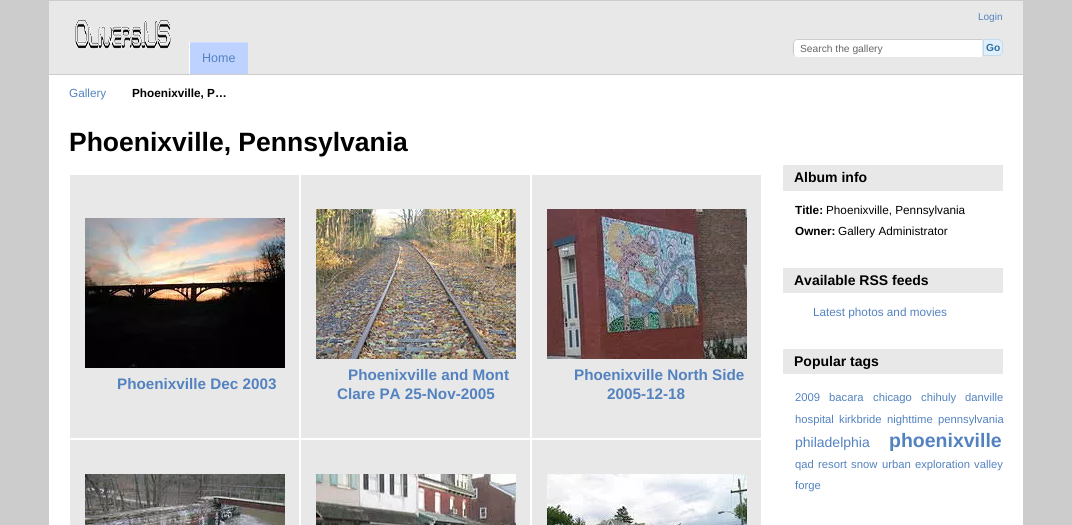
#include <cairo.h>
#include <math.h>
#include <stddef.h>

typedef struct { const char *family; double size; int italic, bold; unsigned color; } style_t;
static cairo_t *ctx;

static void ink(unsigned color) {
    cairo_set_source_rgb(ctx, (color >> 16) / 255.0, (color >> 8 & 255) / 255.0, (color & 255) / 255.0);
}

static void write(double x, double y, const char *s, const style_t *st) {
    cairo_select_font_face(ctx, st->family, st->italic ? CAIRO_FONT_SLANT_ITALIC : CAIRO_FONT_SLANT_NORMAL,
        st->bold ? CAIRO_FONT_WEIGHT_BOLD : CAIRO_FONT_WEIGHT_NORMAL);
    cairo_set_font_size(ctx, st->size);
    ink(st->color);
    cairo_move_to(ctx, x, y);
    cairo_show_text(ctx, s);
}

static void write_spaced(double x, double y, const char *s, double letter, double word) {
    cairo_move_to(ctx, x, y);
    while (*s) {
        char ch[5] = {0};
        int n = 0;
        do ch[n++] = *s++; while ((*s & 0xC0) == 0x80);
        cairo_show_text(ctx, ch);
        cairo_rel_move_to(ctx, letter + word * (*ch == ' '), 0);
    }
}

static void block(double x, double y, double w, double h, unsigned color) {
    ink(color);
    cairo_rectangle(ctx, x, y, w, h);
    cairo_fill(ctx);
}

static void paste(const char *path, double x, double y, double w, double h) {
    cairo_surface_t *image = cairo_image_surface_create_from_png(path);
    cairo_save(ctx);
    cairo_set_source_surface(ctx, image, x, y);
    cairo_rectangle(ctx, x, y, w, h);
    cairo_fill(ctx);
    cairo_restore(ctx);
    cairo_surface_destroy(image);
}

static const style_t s1 = {"Liberation Sans", 10, 0, 0, 0x5382bf};
static const style_t s2 = {"Liberation Sans", 10.25, 0, 0, 0x666666};
static const style_t s3 = {"Liberation Sans", 10.25, 0, 1, 0x2e6e9e};
static const style_t s4 = {"Liberation Sans", 12.5, 0, 0, 0x5382bf};
static const style_t s5 = {"Liberation Sans", 11.75, 0, 0, 0x5382bf};
static const style_t s6 = {"Liberation Sans", 11.75, 0, 1, 0x000000};
static const style_t s7 = {"Liberation Sans", 26.5, 0, 1, 0x000000};
static const style_t s8 = {"Liberation Sans", 15.25, 0, 1, 0x5382bf};
static const style_t s9 = {"Liberation Sans", 14, 0, 1, 0x000000};
static const style_t s10 = {"Liberation Sans", 11.75, 0, 0, 0x000000};
static const style_t s11 = {"Liberation Sans", 11.25, 0, 0, 0x5382bf};
static const style_t s12 = {"Liberation Sans", 14, 0, 0, 0x5382bf};
static const style_t s13 = {"Liberation Sans", 19.5, 0, 1, 0x5382bf};

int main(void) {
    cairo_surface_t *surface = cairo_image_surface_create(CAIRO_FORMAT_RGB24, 1072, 525);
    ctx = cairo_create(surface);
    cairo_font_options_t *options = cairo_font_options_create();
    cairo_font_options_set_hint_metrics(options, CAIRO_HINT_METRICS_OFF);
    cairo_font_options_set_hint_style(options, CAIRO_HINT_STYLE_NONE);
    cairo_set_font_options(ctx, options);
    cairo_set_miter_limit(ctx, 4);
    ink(0xcccccc);
    cairo_paint(ctx);
    block(49, 75, 974, 450, 0xffffff);
    block(49, 1, 974, 73, 0xe8e8e8);
    write(978, 20, "Login", &s1);
    paste("pic1.png", 75, 20, 96, 29);
    ink(0xffffff);
    cairo_new_path(ctx);
    cairo_move_to(ctx, 798, 39);
    cairo_line_to(ctx, 983, 39);
    cairo_line_to(ctx, 983, 58);
    cairo_line_to(ctx, 798, 58);
    cairo_curve_to(ctx, 795, 58, 793, 56, 793, 53);
    cairo_line_to(ctx, 793, 44);
    cairo_curve_to(ctx, 793, 41, 795, 39, 798, 39);
    cairo_close_path(ctx);
    cairo_fill(ctx);
    ink(0xcccccc);
    cairo_new_path(ctx);
    cairo_move_to(ctx, 798, 39);
    cairo_curve_to(ctx, 796, 39, 795, 40, 794, 40);
    cairo_line_to(ctx, 795, 41);
    cairo_curve_to(ctx, 796, 40, 797, 40, 798, 40);
    cairo_line_to(ctx, 982, 40);
    cairo_line_to(ctx, 983, 39);
    cairo_close_path(ctx);
    cairo_fill(ctx);
    ink(0xe8e8e8);
    cairo_new_path(ctx);
    cairo_move_to(ctx, 983, 39);
    cairo_line_to(ctx, 982, 40);
    cairo_line_to(ctx, 982, 57);
    cairo_line_to(ctx, 983, 58);
    cairo_close_path(ctx);
    cairo_fill(ctx);
    cairo_new_path(ctx);
    cairo_move_to(ctx, 983, 58);
    cairo_line_to(ctx, 982, 57);
    cairo_line_to(ctx, 797, 57);
    cairo_line_to(ctx, 795, 56);
    cairo_line_to(ctx, 794, 57);
    cairo_curve_to(ctx, 795, 58, 796, 58, 798, 58);
    cairo_close_path(ctx);
    cairo_fill(ctx);
    ink(0xcccccc);
    cairo_new_path(ctx);
    cairo_move_to(ctx, 793, 44);
    cairo_curve_to(ctx, 793, 47, 792, 54.5, 794.5, 56.5);
    cairo_line_to(ctx, 795, 56);
    cairo_line_to(ctx, 794, 54);
    cairo_line_to(ctx, 794, 43.5);
    cairo_curve_to(ctx, 794, 42.5, 794.5, 41.5, 795, 41);
    cairo_line_to(ctx, 794.5, 40.5);
    cairo_curve_to(ctx, 793.5, 41, 793, 42.5, 793, 44);
    cairo_close_path(ctx);
    cairo_fill(ctx);
    write(800, 52, "Search the gallery", &s2);
    ink(0xdfeffc);
    cairo_new_path(ctx);
    cairo_move_to(ctx, 983.5, 39.5);
    cairo_line_to(ctx, 998, 39.5);
    cairo_curve_to(ctx, 1000.5, 39.5, 1002.5, 41.5, 1002.5, 44);
    cairo_line_to(ctx, 1002.5, 51);
    cairo_curve_to(ctx, 1002.5, 53.5, 1000.5, 55.5, 998, 55.5);
    cairo_line_to(ctx, 983.5, 55.5);
    cairo_close_path(ctx);
    cairo_fill_preserve(ctx);
    ink(0xc5dbec);
    cairo_set_line_width(ctx, 1);
    cairo_stroke(ctx);
    write(986, 51, "Go", &s3);
    block(190, 43, 58, 31, 0xbdd2ff);
    block(189, 42, 59, 1, 0xcfdeff);
    block(189, 42, 1, 32, 0xffffff);
    write(202, 62, "Home", &s4);
    write(69, 97, "Gallery", &s5);
    write(132, 97, "Phoenixville, P…", &s6);
    write(69, 151, "Phoenixville, Pennsylvania", &s7);
    block(70, 175, 229, 263, 0xe8e8e8);
    paste("pic2.png", 85, 218, 200, 150);
    write(117, 389, "Phoenixville Dec 2003", &s8);
    block(301, 175, 229, 263, 0xe8e8e8);
    paste("pic3.png", 316, 209, 200, 150);
    write(348, 380, "Phoenixville and Mont", &s8);
    write(337, 399, "Clare PA 25-Nov-2005", &s8);
    block(532, 175, 229, 263, 0xe8e8e8);
    paste("pic4.png", 547, 209, 200, 150);
    write(574, 380, "Phoenixville North Side", &s8);
    write(607, 399, "2005-12-18", &s8);
    block(70, 440, 229, 85, 0xe8e8e8);
    paste("pic5.png", 85, 474, 200, 51);
    block(301, 440, 229, 85, 0xe8e8e8);
    paste("pic6.png", 316, 474, 200, 51);
    block(532, 440, 229, 85, 0xe8e8e8);
    paste("pic7.png", 547, 474, 200, 51);
    block(783, 165, 220, 26, 0xe8e8e8);
    write(794, 182, "Album info", &s9);
    write(795, 214, "Title:", &s6);
    write(826, 214, "Phoenixville, Pennsylvania", &s10);
    write(795, 235, "Owner:", &s6);
    write(838, 235, "Gallery Administrator", &s10);
    block(783, 268, 220, 25, 0xe8e8e8);
    write(794, 285, "Available RSS feeds", &s9);
    write(813, 316, "Latest photos and movies", &s5);
    block(783, 349, 220, 25, 0xe8e8e8);
    write(794, 366, "Popular tags", &s9);
    write(795, 401, "2009", &s11);
    write(829, 401, "bacara", &s11);
    write(873, 401, "chicago", &s11);
    write(921, 401, "chihuly", &s11);
    write(965, 401, "danville", &s11);
    write(795, 423, "hospital", &s11);
    write(839, 423, "kirkbride", &s11);
    write(887, 423, "nighttime", &s11);
    write(938, 423, "pennsylvania", &s11);
    write(795, 447, "philadelphia", &s12);
    write(889, 447, "phoenixville", &s13);
    write(795, 468, "qad", &s11);
    write(818, 468, "resort", &s11);
    write(851, 468, "snow", &s11);
    write_spaced(882, 468, "urban exploration", 0, 1);
    write(974, 468, "valley", &s11);
    write(795, 489, "forge", &s11);
    cairo_surface_write_to_png(surface, "screenshot.png");
    cairo_font_options_destroy(options);
    cairo_destroy(ctx);
    cairo_surface_destroy(surface);
    return 0;
}
